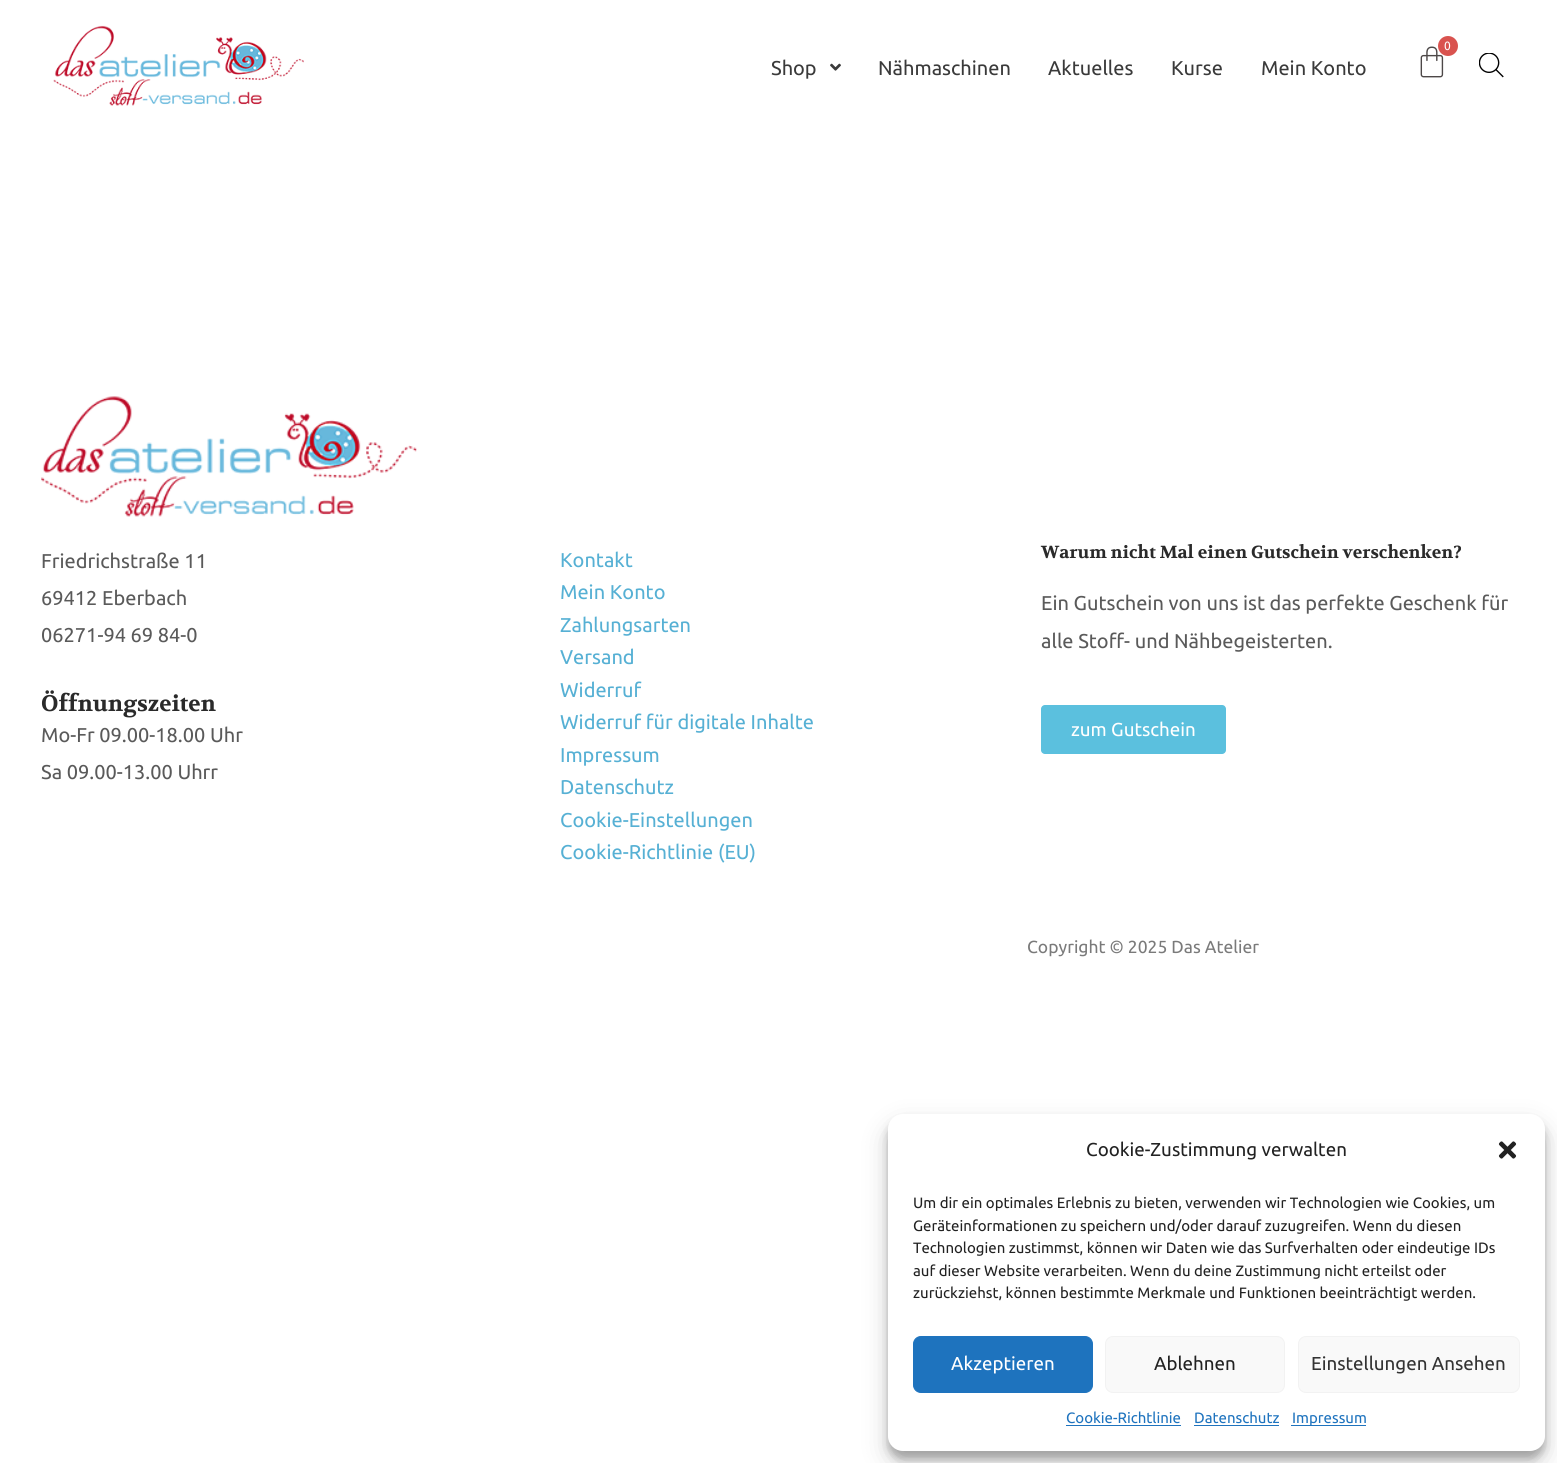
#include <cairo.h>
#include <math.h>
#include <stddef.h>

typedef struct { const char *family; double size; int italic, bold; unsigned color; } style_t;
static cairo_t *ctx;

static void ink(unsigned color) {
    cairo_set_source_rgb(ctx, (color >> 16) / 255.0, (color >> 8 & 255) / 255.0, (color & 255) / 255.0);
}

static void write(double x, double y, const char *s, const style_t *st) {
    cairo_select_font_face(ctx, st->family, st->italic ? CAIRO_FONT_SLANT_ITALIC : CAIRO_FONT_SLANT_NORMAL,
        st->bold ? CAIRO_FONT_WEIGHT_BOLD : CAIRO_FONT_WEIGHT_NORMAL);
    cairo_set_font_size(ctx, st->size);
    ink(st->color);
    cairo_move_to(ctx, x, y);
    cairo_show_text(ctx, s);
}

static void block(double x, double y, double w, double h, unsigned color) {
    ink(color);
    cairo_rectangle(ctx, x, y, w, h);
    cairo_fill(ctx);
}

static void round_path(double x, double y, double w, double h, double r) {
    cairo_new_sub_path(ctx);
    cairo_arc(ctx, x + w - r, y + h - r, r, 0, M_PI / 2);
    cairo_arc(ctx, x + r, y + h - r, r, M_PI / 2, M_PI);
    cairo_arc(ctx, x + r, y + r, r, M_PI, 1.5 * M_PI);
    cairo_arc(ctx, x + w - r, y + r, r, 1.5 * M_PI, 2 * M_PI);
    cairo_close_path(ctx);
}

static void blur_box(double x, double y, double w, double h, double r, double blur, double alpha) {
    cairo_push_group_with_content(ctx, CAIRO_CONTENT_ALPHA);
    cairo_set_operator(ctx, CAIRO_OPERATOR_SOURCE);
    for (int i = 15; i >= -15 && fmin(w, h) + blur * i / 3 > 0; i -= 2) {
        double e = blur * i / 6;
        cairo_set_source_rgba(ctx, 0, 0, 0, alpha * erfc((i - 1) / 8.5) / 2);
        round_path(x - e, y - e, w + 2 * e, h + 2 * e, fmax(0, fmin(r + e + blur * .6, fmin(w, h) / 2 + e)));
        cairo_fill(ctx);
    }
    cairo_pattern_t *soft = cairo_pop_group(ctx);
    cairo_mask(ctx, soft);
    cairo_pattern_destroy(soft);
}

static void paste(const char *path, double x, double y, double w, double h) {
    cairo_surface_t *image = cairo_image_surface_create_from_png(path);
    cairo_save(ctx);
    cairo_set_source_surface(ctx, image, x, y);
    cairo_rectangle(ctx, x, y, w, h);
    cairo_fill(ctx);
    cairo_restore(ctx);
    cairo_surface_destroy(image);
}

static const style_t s1 = {"Ubuntu", 12, 0, 0, 0xffffff};
static const style_t s2 = {"Ubuntu", 20, 0, 0, 0x3a3a3a};
static const style_t s3 = {"Ubuntu", 20, 0, 0, 0x5a5a5a};
static const style_t s4 = {"Volkhov", 22.5, 0, 1, 0x2a2a2a};
static const style_t s5 = {"Ubuntu", 20, 0, 0, 0x56b0d4};
static const style_t s6 = {"Volkhov", 17.5, 0, 1, 0x2a2a2a};
static const style_t s7 = {"Ubuntu", 18.75, 0, 0, 0xffffff};
static const style_t s8 = {"Ubuntu", 17.5, 0, 0, 0x7a7a7a};
static const style_t s9 = {"Ubuntu", 18.75, 0, 0, 0x222222};
static const style_t s10 = {"Ubuntu", 15, 0, 0, 0x222222};
static const style_t s11 = {"Ubuntu", 18.75, 0, 0, 0x333333};
static const style_t s12 = {"Ubuntu", 15, 0, 0, 0x1e73be};

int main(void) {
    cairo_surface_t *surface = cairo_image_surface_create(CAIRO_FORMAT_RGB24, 1557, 1463);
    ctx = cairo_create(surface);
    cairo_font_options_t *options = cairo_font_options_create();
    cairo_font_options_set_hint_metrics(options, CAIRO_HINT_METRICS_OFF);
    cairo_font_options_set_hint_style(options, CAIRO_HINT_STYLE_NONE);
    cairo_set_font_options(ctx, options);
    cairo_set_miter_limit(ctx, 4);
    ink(0xffffff);
    cairo_paint(ctx);
    paste("pic1.png", 53, 25, 251, 81);
    paste("pic2.png", 1420, 46, 24, 32);
    ink(0xd9534f);
    cairo_arc(ctx, 1448, 46, 10, 0, 2 * M_PI);
    cairo_fill(ctx);
    write(1444, 50, "0", &s1);
    write(771, 75, "Shop", &s2);
    paste("pic3.png", 830, 63, 11, 8);
    write(878, 75, "Nähmaschinen", &s2);
    write(1048, 75, "Aktuelles", &s2);
    write(1171, 75, "Kurse", &s2);
    write(1261, 75, "Mein Konto", &s2);
    paste("pic4.png", 1479, 53, 25, 25);
    paste("pic5.png", 41, 396, 376, 121);
    write(41, 568, "Friedrichstraße 11", &s3);
    write(41, 605, "69412 Eberbach", &s3);
    write(41, 642, "06271-94 69 84-0", &s3);
    write(41, 711, "Öffnungszeiten", &s4);
    write(41, 742, "Mo-Fr 09.00-18.00 Uhr", &s3);
    write(41, 779, "Sa 09.00-13.00 Uhrr", &s3);
    write(560, 567, "Kontakt", &s5);
    write(560, 599, "Mein Konto", &s5);
    write(560, 632, "Zahlungsarten", &s5);
    write(560, 664, "Versand", &s5);
    write(560, 697, "Widerruf", &s5);
    write(560, 729, "Widerruf für digitale Inhalte", &s5);
    write(560, 762, "Impressum", &s5);
    write(560, 794, "Datenschutz", &s5);
    write(560, 827, "Cookie-Einstellungen", &s5);
    write(560, 859, "Cookie-Richtlinie (EU)", &s5);
    write(1041, 558, "Warum nicht Mal einen Gutschein verschenken?", &s6);
    write(1041, 610, "Ein Gutschein von uns ist das perfekte Geschenk für", &s3);
    write(1041, 648, "alle Stoff- und Nähbegeisterten.", &s3);
    ink(0x5bc0de);
    round_path(1041, 705, 185, 49, 4);
    cairo_fill(ctx);
    write(1071, 736, "zum Gutschein", &s7);
    write(1027, 953, "Copyright © 2025 Das Atelier", &s8);
    ink(0x000000);
    blur_box(888, 1121, 657, 338, 15, 4, 0.23);
    blur_box(888, 1126, 657, 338, 15, 12.5, 0.19);
    ink(0xffffff);
    round_path(888, 1114, 657, 337, 15);
    cairo_fill(ctx);
    write(1086, 1156, "Cookie-Zustimmung verwalten", &s9);
    paste("pic6.png", 1498, 1141, 19, 18);
    write(913, 1208, "Um dir ein optimales Erlebnis zu bieten, verwenden wir Technologien wie Cookies, um", &s10);
    write(913, 1231, "Geräteinformationen zu speichern und/oder darauf zuzugreifen. Wenn du diesen", &s10);
    write(913, 1253, "Technologien zustimmst, können wir Daten wie das Surfverhalten oder eindeutige IDs", &s10);
    write(913, 1276, "auf dieser Website verarbeiten. Wenn du deine Zustimmung nicht erteilst oder", &s10);
    write(913, 1298, "zurückziehst, können bestimmte Merkmale und Funktionen beeinträchtigt werden.", &s10);
    ink(0x1e73be);
    round_path(913.5, 1336.5, 179, 56, 7.5);
    cairo_fill_preserve(ctx);
    cairo_set_line_width(ctx, 1);
    cairo_stroke(ctx);
    write(951, 1370, "Akzeptieren", &s7);
    ink(0xf9f9f9);
    round_path(1105.5, 1336.5, 179, 56, 7.5);
    cairo_fill_preserve(ctx);
    ink(0xf2f2f2);
    cairo_stroke(ctx);
    write(1154, 1370, "Ablehnen", &s9);
    ink(0xf9f9f9);
    round_path(1298.5, 1336.5, 221, 56, 7.5);
    cairo_fill_preserve(ctx);
    ink(0xf2f2f2);
    cairo_stroke(ctx);
    write(1311, 1370, "Einstellungen Ansehen", &s11);
    write(1066, 1423, "Cookie-Richtlinie", &s12);
    block(1066, 1425, 115, 1, 0x1e73be);
    write(1194, 1423, "Datenschutz", &s12);
    block(1194, 1425, 85, 1, 0x1e73be);
    block(1291, 1425, 75, 1, 0x1e73be);
    write(1292, 1423, "Impressum", &s12);
    cairo_surface_write_to_png(surface, "screenshot.png");
    cairo_font_options_destroy(options);
    cairo_destroy(ctx);
    cairo_surface_destroy(surface);
    return 0;
}
